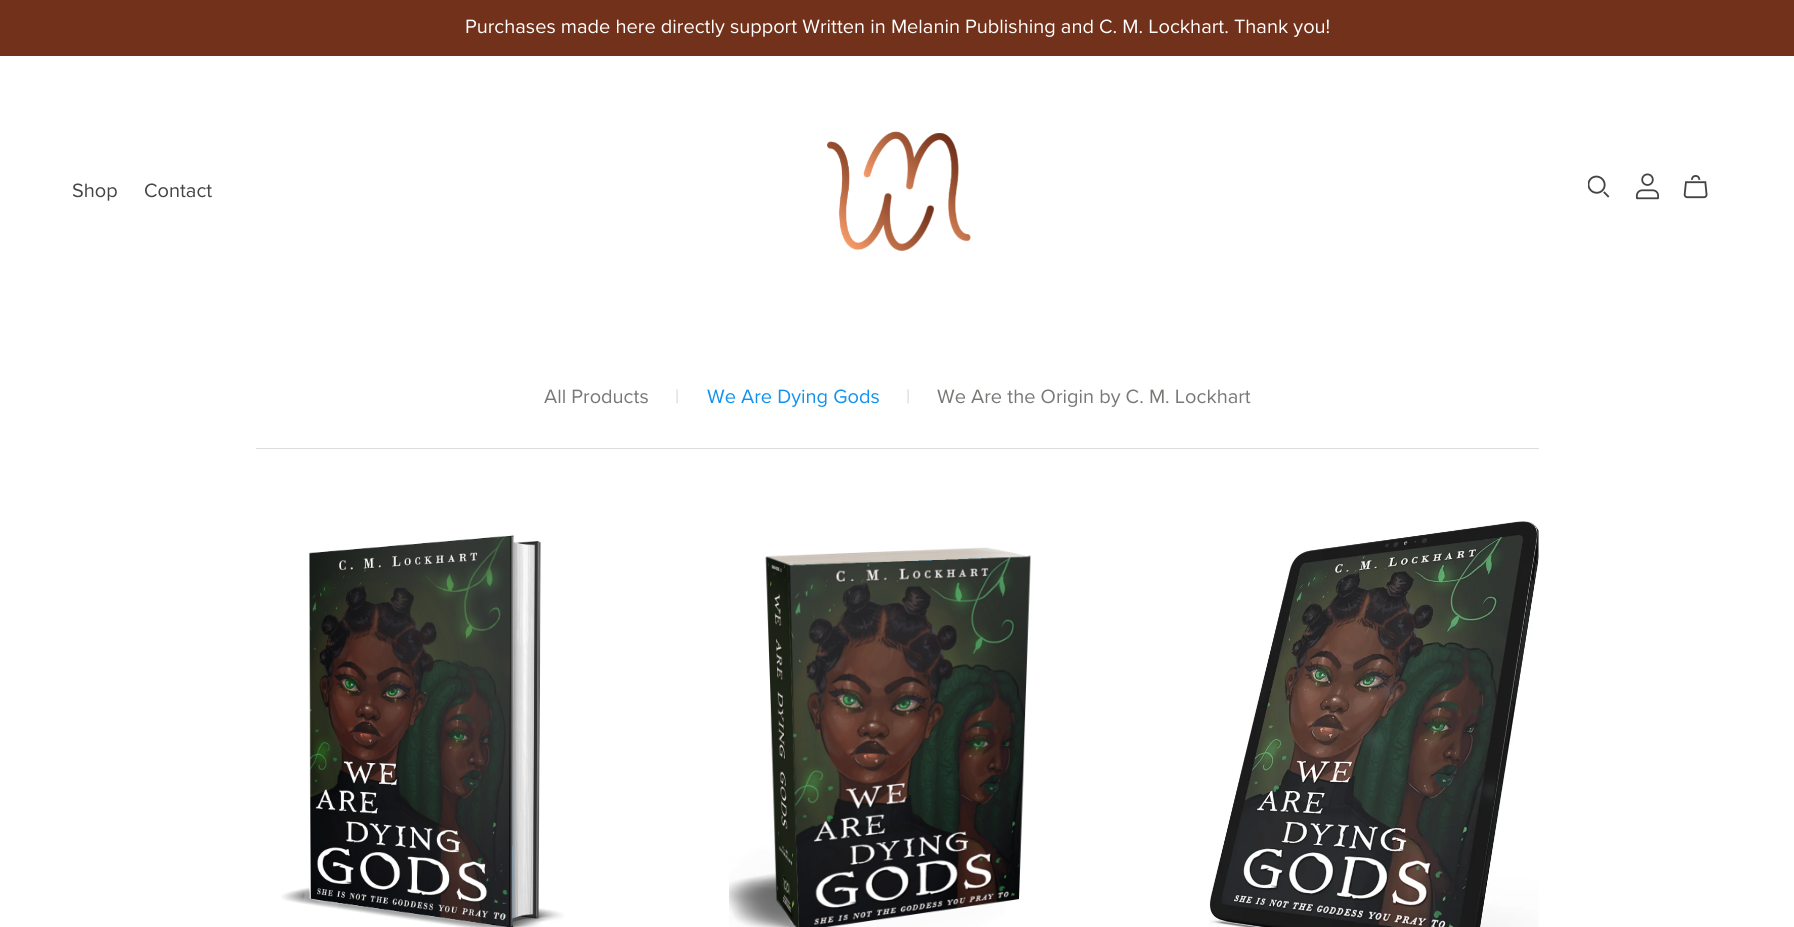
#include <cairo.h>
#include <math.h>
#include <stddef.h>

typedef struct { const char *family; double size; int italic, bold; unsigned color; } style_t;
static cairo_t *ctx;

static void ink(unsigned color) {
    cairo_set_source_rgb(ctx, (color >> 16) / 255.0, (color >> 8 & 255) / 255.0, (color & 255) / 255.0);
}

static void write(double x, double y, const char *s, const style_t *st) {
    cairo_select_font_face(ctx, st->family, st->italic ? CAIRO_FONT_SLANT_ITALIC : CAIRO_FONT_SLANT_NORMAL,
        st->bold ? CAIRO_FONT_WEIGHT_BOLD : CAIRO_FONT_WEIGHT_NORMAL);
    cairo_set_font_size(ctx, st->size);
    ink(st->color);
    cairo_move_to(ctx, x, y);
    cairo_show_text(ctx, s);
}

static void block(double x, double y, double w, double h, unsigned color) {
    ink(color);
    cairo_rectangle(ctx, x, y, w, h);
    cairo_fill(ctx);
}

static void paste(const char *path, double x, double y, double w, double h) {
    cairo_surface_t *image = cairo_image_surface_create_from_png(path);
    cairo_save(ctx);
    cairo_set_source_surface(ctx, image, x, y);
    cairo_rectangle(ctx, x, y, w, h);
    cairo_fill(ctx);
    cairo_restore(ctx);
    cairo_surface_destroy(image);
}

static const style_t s1 = {"Proxima Nova", 20, 0, 0, 0xffffff};
static const style_t s2 = {"Proxima Nova", 20, 0, 0, 0x444444};
static const style_t s3 = {"Proxima Nova", 20, 0, 0, 0x797875};
static const style_t s4 = {"Proxima Nova", 20, 0, 0, 0xd7d7d6};
static const style_t s5 = {"Proxima Nova", 20, 0, 0, 0x1292ee};

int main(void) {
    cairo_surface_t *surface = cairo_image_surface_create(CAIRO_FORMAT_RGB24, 1794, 927);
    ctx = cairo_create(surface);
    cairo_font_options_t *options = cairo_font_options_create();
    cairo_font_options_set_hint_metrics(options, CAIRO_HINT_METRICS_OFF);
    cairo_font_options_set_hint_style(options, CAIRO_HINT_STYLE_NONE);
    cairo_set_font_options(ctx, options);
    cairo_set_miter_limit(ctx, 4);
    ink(0xffffff);
    cairo_paint(ctx);
    block(0, 0, 1794, 56, 0x71311a);
    write(465, 33, "Purchases made here directly support Written in Melanin Publishing and C. M. Lockhart. Thank you!", &s1);
    write(72, 197, "Shop", &s2);
    write(144, 197, "Contact", &s2);
    paste("pic1.png", 827, 131, 144, 121);
    paste("pic2.png", 1588, 175, 22, 23);
    paste("pic3.png", 1635, 173, 25, 27);
    paste("pic4.png", 1683, 175, 25, 24);
    write(544, 403, "All Products", &s3);
    write(675, 403, "|", &s4);
    write(707, 403, "We Are Dying Gods", &s5);
    write(906, 403, "|", &s4);
    write(937, 403, "We Are the Origin by C. M. Lockhart", &s3);
    block(256, 448, 1283, 1, 0xdddddd);
    paste("pic5.png", 281, 535, 283, 392);
    paste("pic6.png", 729, 547, 302, 380);
    paste("pic7.png", 1209, 521, 330, 406);
    cairo_surface_write_to_png(surface, "screenshot.png");
    cairo_font_options_destroy(options);
    cairo_destroy(ctx);
    cairo_surface_destroy(surface);
    return 0;
}
